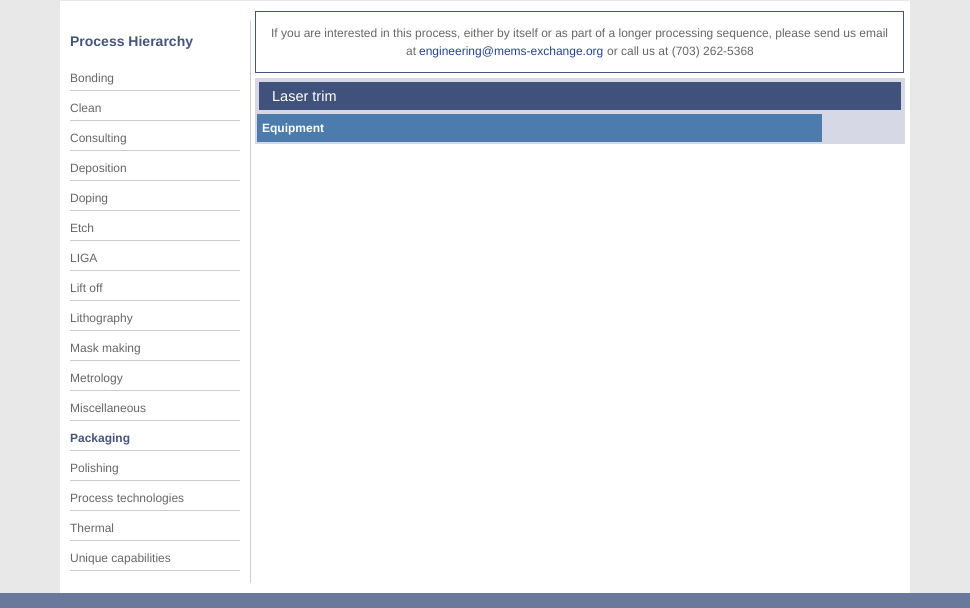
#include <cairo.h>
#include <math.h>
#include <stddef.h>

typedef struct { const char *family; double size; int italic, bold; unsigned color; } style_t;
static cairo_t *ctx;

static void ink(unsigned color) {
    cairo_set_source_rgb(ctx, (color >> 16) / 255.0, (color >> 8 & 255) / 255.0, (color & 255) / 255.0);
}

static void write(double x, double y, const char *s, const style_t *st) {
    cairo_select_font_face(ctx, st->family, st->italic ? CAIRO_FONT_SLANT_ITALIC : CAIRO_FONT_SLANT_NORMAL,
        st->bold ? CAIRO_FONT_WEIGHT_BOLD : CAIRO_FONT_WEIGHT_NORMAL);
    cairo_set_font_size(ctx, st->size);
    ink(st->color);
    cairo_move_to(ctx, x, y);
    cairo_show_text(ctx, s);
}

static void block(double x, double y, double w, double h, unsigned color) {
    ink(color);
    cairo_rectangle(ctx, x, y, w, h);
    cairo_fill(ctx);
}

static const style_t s1 = {"Liberation Sans", 14, 0, 1, 0x43557e};
static const style_t s2 = {"Liberation Sans", 12, 0, 0, 0x666666};
static const style_t s3 = {"Liberation Sans", 12, 0, 1, 0x43557e};
static const style_t s4 = {"Liberation Sans", 12, 0, 0, 0x20439c};
static const style_t s5 = {"Liberation Sans", 14.5, 0, 0, 0xffffff};
static const style_t s6 = {"Liberation Sans", 12, 0, 1, 0xffffff};

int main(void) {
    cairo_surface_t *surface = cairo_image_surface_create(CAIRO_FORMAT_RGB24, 970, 608);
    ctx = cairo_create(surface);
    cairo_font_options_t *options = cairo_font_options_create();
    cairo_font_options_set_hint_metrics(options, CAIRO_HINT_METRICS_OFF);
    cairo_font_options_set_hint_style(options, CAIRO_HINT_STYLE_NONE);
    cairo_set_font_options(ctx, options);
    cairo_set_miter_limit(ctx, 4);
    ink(0xe8e8e8);
    cairo_paint(ctx);
    block(60, 1, 850, 592, 0xffffff);
    block(250, 21, 1, 562, 0xcccccc);
    write(70, 46, "Process Hierarchy", &s1);
    block(70, 90, 170, 1, 0xcccccc);
    write(70, 82, "Bonding", &s2);
    block(70, 120, 170, 1, 0xcccccc);
    write(70, 112, "Clean", &s2);
    block(70, 150, 170, 1, 0xcccccc);
    write(70, 142, "Consulting", &s2);
    block(70, 180, 170, 1, 0xcccccc);
    write(70, 172, "Deposition", &s2);
    block(70, 210, 170, 1, 0xcccccc);
    write(70, 202, "Doping", &s2);
    block(70, 240, 170, 1, 0xcccccc);
    write(70, 232, "Etch", &s2);
    block(70, 270, 170, 1, 0xcccccc);
    write(70, 262, "LIGA", &s2);
    block(70, 300, 170, 1, 0xcccccc);
    write(70, 292, "Lift off", &s2);
    block(70, 330, 170, 1, 0xcccccc);
    write(70, 322, "Lithography", &s2);
    block(70, 360, 170, 1, 0xcccccc);
    write(70, 352, "Mask making", &s2);
    block(70, 390, 170, 1, 0xcccccc);
    write(70, 382, "Metrology", &s2);
    block(70, 420, 170, 1, 0xcccccc);
    write(70, 412, "Miscellaneous", &s2);
    block(70, 450, 170, 1, 0xcccccc);
    write(70, 442, "Packaging", &s3);
    block(70, 480, 170, 1, 0xcccccc);
    write(70, 472, "Polishing", &s2);
    block(70, 510, 170, 1, 0xcccccc);
    write(70, 502, "Process technologies", &s2);
    block(70, 540, 170, 1, 0xcccccc);
    write(70, 532, "Thermal", &s2);
    block(70, 570, 170, 1, 0xcccccc);
    write(70, 562, "Unique capabilities", &s2);
    cairo_rectangle(ctx, 255.5, 11.5, 648, 61);
    ink(0x43557e);
    cairo_set_line_width(ctx, 1);
    cairo_stroke(ctx);
    write(271, 37, "If you are interested in this process, either by itself or as part of a longer processing sequence, please send us email", &s2);
    write(406, 55, "at", &s2);
    write(419, 55, "engineering@mems-exchange.org", &s4);
    write(607, 55, "or call us at (703) 262-5368", &s2);
    block(255, 78, 650, 66, 0xd7d8e6);
    block(259, 82, 642, 28, 0x40517c);
    write(272, 101, "Laser trim", &s5);
    block(257, 114, 565, 28, 0x4c7bad);
    write(262, 132, "Equipment", &s6);
    block(0, 593, 970, 15, 0x68799c);
    cairo_surface_write_to_png(surface, "screenshot.png");
    cairo_font_options_destroy(options);
    cairo_destroy(ctx);
    cairo_surface_destroy(surface);
    return 0;
}
